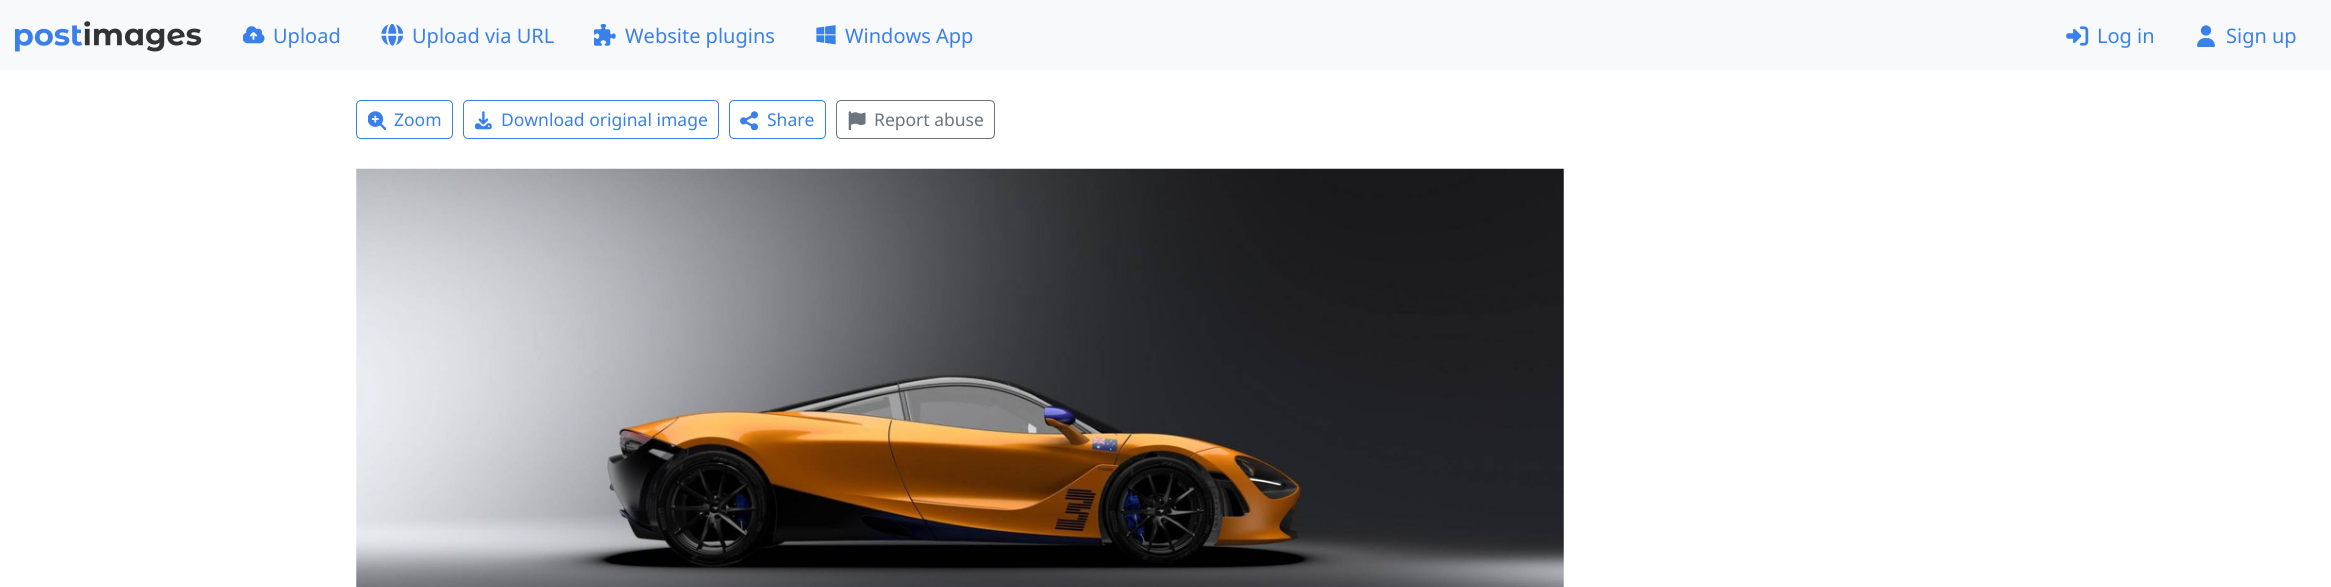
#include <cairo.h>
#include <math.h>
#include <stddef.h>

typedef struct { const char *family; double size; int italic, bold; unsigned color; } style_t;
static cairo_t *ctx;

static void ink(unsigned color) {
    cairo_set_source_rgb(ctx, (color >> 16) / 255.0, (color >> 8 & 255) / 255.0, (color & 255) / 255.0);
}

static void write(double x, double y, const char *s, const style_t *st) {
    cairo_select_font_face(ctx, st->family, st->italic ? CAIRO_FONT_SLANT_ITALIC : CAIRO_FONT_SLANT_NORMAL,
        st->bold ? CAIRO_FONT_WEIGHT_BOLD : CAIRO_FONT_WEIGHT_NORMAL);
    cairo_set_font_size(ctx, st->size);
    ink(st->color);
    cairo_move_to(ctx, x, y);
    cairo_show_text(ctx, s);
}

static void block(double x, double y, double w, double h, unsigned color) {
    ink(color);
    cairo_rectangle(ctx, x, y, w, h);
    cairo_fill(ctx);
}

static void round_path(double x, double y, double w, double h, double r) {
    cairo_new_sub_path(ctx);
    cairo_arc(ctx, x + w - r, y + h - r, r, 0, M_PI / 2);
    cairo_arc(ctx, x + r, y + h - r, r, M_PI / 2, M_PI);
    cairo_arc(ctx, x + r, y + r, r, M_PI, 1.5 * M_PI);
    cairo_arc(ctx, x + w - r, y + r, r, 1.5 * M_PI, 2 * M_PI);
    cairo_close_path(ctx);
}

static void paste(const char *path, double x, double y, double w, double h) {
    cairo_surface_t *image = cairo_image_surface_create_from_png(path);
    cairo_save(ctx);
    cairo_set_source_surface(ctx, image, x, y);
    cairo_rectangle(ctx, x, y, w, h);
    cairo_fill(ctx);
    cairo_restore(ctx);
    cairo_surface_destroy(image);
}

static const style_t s1 = {"Noto Sans", 20, 0, 0, 0x3a80ea};
static const style_t s2 = {"Noto Sans", 17.5, 0, 0, 0x3a80ea};
static const style_t s3 = {"Noto Sans", 17.5, 0, 0, 0x6c757d};

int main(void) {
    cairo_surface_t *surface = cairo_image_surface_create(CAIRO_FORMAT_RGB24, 2331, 587);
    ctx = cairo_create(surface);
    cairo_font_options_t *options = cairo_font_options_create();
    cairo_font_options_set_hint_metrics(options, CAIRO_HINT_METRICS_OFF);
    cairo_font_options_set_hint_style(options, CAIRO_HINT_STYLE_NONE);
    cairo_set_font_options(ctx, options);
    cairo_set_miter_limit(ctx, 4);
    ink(0xffffff);
    cairo_paint(ctx);
    block(0, 0, 2331, 70, 0xf8f9fa);
    paste("pic1.png", 15, 21, 187, 31);
    paste("pic2.png", 243, 26, 22, 18);
    write(273, 43, "Upload", &s1);
    paste("pic3.png", 381, 24, 22, 22);
    write(412, 43, "Upload via URL", &s1);
    paste("pic4.png", 594, 24, 22, 22);
    write(625, 43, "Website plugins", &s1);
    paste("pic5.png", 816, 25, 20, 20);
    write(845, 43, "Windows App", &s1);
    paste("pic6.png", 2066, 26, 23, 20);
    write(2097, 43, "Log in", &s1);
    paste("pic7.png", 2197, 25, 18, 22);
    write(2226, 43, "Sign up", &s1);
    round_path(356.5, 100.5, 96, 38, 4.5);
    cairo_set_line_width(ctx, 1);
    cairo_stroke(ctx);
    paste("pic8.png", 368, 111, 18, 19);
    write(394, 126, "Zoom", &s2);
    round_path(463.5, 100.5, 255, 38, 4.5);
    cairo_stroke(ctx);
    paste("pic9.png", 474, 111, 18, 19);
    write(501, 126, "Download original image", &s2);
    round_path(729.5, 100.5, 96, 38, 4.5);
    cairo_stroke(ctx);
    paste("pic10.png", 740, 111, 18, 19);
    write(767, 126, "Share", &s2);
    round_path(836.5, 100.5, 158, 38, 4.5);
    ink(0x6c757d);
    cairo_stroke(ctx);
    paste("pic11.png", 848, 111, 18, 19);
    write(874, 126, "Report abuse", &s3);
    paste("pic12.png", 356, 168, 1208, 419);
    cairo_surface_write_to_png(surface, "screenshot.png");
    cairo_font_options_destroy(options);
    cairo_destroy(ctx);
    cairo_surface_destroy(surface);
    return 0;
}
